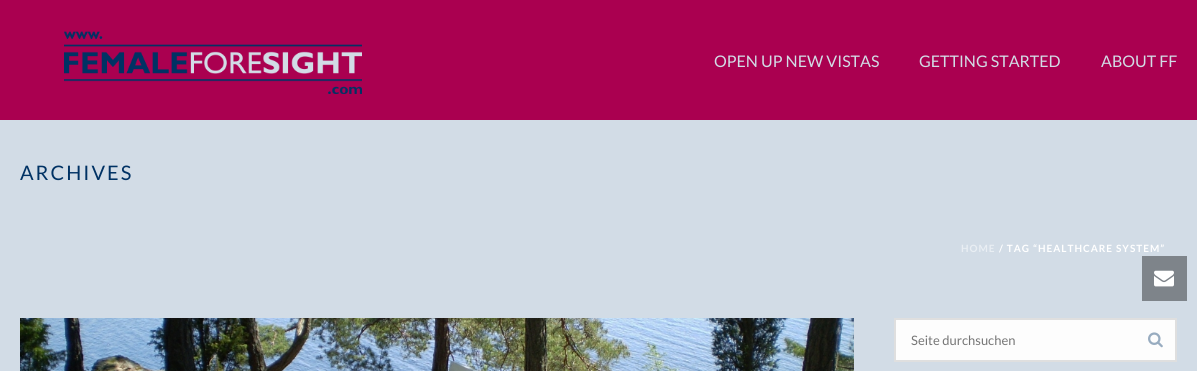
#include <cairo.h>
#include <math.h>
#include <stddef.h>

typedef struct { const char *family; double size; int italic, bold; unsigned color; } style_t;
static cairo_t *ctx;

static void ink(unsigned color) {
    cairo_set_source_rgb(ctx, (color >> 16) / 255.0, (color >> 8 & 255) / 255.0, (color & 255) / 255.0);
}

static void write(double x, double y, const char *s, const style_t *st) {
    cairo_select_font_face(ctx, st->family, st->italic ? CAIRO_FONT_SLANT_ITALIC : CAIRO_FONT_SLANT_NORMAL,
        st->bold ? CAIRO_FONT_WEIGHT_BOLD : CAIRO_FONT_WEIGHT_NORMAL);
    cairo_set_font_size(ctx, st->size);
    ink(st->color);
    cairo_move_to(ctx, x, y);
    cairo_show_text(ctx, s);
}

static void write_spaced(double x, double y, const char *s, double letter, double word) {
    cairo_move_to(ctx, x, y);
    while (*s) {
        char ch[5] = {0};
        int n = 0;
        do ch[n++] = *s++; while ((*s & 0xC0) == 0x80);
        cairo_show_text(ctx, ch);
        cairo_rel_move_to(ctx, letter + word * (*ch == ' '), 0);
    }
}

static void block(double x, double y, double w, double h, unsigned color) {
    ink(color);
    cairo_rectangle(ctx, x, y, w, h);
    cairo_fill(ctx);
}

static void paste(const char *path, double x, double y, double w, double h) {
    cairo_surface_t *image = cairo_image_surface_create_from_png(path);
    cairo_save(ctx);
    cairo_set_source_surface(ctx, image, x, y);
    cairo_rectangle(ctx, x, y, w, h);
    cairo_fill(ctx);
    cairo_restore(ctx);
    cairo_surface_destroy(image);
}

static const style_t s1 = {"Lato", 16, 0, 0, 0xd2dce6};
static const style_t s2 = {"Lato", 13, 0, 0, 0x757575};

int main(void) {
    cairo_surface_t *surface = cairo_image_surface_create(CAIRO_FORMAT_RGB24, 1197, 371);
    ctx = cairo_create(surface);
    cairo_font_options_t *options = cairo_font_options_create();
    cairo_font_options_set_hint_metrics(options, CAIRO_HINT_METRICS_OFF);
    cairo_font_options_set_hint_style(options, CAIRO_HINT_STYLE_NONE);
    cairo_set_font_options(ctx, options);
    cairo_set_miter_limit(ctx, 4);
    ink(0xd2dce6);
    cairo_paint(ctx);
    block(0, 0, 1197, 120, 0xaa0050);
    paste("pic1.png", 64, 31, 298, 63);
    write(714, 67, "OPEN UP NEW VISTAS", &s1);
    write(919, 67, "GETTING STARTED", &s1);
    write(1101, 67, "ABOUT FF", &s1);
    cairo_set_font_size(ctx, 20);
    ink(0x003264);
    write_spaced(20, 180, "ARCHIVES", 2, 0);
    cairo_select_font_face(ctx, "Lato", CAIRO_FONT_SLANT_NORMAL, CAIRO_FONT_WEIGHT_BOLD);
    cairo_set_font_size(ctx, 10);
    ink(0xe9eef3);
    write_spaced(961, 252, "HOME", 1, 0);
    ink(0xffffff);
    write_spaced(999, 252, "/ TAG “HEALTHCARE SYSTEM”", 1, 0);
    paste("pic2.png", 20, 318, 834, 53);
    ink(0xfdfdfd);
    cairo_rectangle(ctx, 895, 319, 281, 42);
    cairo_fill_preserve(ctx);
    ink(0xdfdfdf);
    cairo_stroke(ctx);
    write(911, 345, "Seite durchsuchen", &s2);
    paste("pic3.png", 1148, 332, 15, 16);
    block(1142, 256, 45, 45, 0x7e848a);
    paste("pic4.png", 1154, 270, 20, 17);
    cairo_surface_write_to_png(surface, "screenshot.png");
    cairo_font_options_destroy(options);
    cairo_destroy(ctx);
    cairo_surface_destroy(surface);
    return 0;
}
